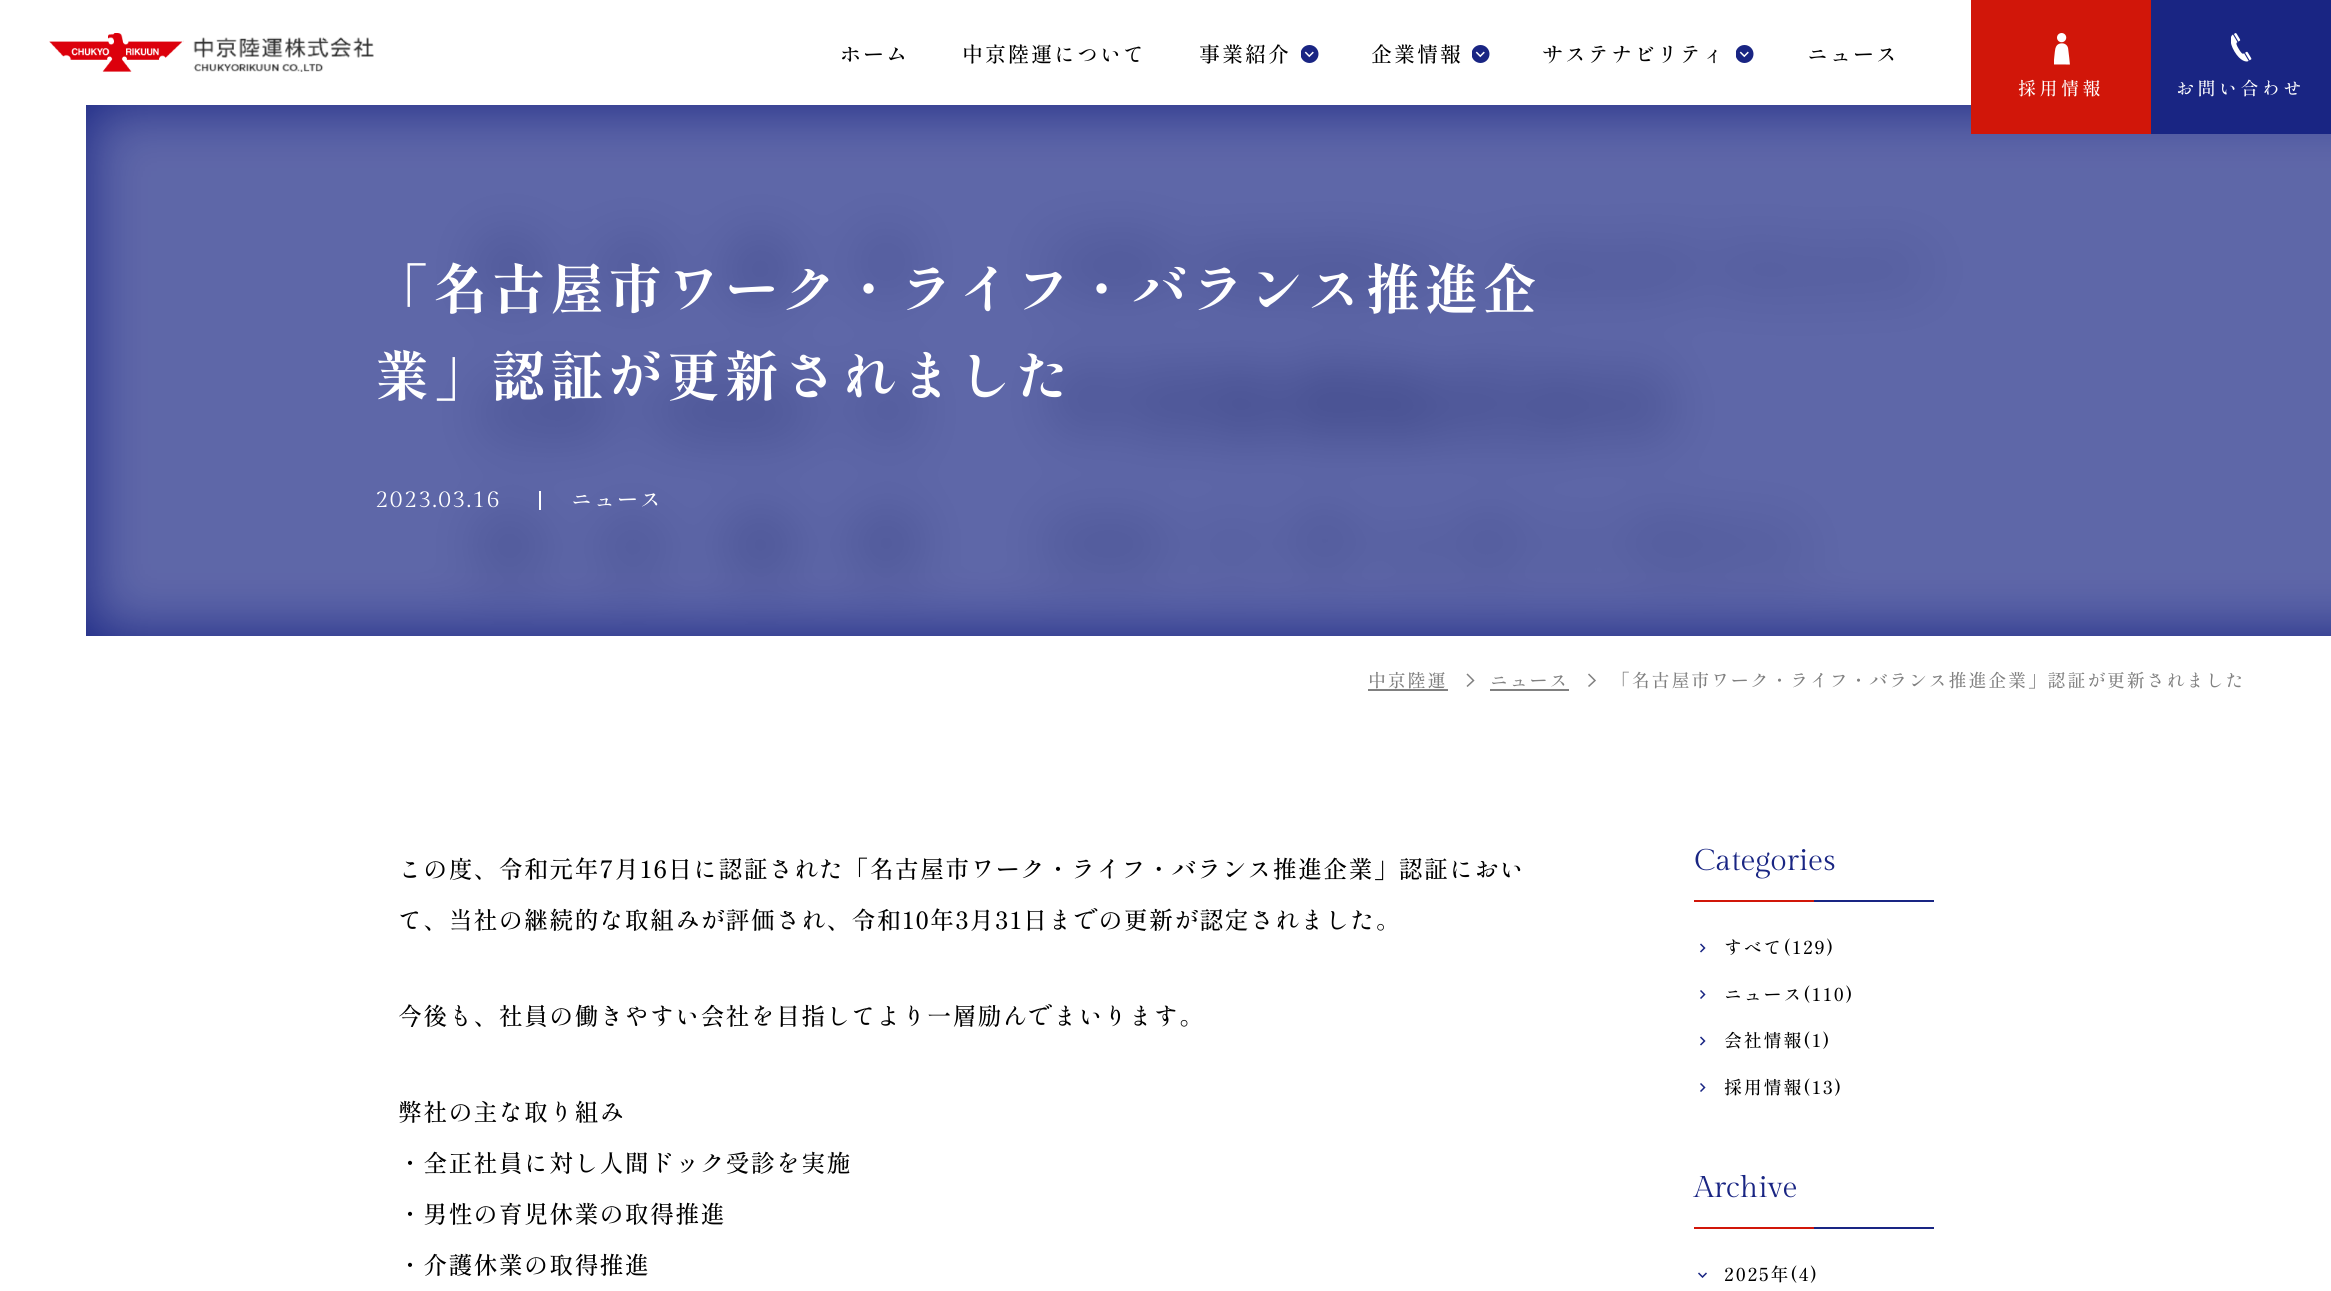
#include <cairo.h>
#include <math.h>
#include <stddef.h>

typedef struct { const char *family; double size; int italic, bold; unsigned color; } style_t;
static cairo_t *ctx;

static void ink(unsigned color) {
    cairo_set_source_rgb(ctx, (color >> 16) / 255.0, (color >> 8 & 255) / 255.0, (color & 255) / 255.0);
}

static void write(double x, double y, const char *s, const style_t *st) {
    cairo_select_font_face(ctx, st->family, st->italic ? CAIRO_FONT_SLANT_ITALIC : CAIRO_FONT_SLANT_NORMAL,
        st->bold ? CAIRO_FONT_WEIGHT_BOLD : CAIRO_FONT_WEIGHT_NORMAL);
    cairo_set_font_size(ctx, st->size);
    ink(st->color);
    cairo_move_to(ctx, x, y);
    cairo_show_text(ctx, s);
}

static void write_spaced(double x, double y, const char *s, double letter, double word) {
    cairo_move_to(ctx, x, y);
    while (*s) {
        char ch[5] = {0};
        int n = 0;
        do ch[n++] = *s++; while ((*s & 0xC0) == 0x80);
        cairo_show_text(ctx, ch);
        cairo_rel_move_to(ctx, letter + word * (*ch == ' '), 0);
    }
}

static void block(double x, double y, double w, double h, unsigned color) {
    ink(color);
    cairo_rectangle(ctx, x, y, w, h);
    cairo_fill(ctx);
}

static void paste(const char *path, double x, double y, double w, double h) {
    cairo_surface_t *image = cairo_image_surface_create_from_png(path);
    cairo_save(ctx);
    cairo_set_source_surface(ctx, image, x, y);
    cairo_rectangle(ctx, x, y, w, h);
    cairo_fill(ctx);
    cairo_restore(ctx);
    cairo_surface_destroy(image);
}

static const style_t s1 = {"Gilda Display", 30, 0, 0, 0x192583};

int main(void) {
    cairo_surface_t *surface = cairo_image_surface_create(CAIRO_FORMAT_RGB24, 2331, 1291);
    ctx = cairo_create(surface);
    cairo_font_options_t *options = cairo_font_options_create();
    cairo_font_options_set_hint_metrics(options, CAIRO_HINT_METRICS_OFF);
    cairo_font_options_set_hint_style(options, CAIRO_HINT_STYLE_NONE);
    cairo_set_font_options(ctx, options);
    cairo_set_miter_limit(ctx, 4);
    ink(0xffffff);
    cairo_paint(ctx);
    paste("pic1.png", 49, 33, 325, 39);
    cairo_select_font_face(ctx, "Shippori Mincho Medium", CAIRO_FONT_SLANT_NORMAL, CAIRO_FONT_WEIGHT_NORMAL);
    cairo_set_font_size(ctx, 21);
    ink(0x000000);
    write_spaced(840, 62, "ホーム", 2, 0);
    write_spaced(962, 62, "中京陸運について", 2, 0);
    write_spaced(1199, 62, "事業紹介", 2, 0);
    paste("pic2.png", 1301, 45, 18, 18);
    write_spaced(1371, 62, "企業情報", 2, 0);
    paste("pic2.png", 1472, 45, 18, 18);
    write_spaced(1542, 62, "サステナビリティ", 2, 0);
    paste("pic2.png", 1736, 45, 18, 18);
    write_spaced(1807, 62, "ニュース", 2, 0);
    block(86, 105, 2245, 531, 0x192583);
    paste("pic5.png", 86, 105, 2245, 531);
    block(1971, 0, 180, 134, 0xd11609);
    paste("pic3.png", 2054, 33, 16, 32);
    cairo_set_font_size(ctx, 18);
    ink(0xffffff);
    write_spaced(2018, 95, "採用情報", 3.5, 0);
    block(2151, 0, 180, 134, 0x192583);
    paste("pic4.png", 2231, 33, 21, 29);
    ink(0xffffff);
    write_spaced(2176, 95, "お問い合わせ", 3.5, 0);
    cairo_select_font_face(ctx, "Shippori Mincho", CAIRO_FONT_SLANT_NORMAL, CAIRO_FONT_WEIGHT_BOLD);
    cairo_set_font_size(ctx, 54);
    write_spaced(375, 309, "「名古屋市ワーク・ライフ・バランス推進企", 4.3, 0);
    write_spaced(375, 396, "業」認証が更新されました", 4.3, 0);
    cairo_select_font_face(ctx, "Gilda Display", CAIRO_FONT_SLANT_NORMAL, CAIRO_FONT_WEIGHT_NORMAL);
    cairo_set_font_size(ctx, 24);
    write_spaced(375, 507, "2023.03.16", 1.2, 0);
    block(539, 491, 2, 19, 0xffffff);
    cairo_select_font_face(ctx, "Shippori Mincho Medium", CAIRO_FONT_SLANT_NORMAL, CAIRO_FONT_WEIGHT_NORMAL);
    cairo_set_font_size(ctx, 21);
    write_spaced(571, 507, "ニュース", 2, 0);
    cairo_set_font_size(ctx, 18);
    ink(0x808080);
    write_spaced(1368, 687, "中京陸運", 1.8, 0);
    cairo_new_path(ctx);
    cairo_move_to(ctx, 1467, 674);
    cairo_line_to(ctx, 1473.5, 680.5);
    cairo_line_to(ctx, 1467, 686.5);
    cairo_set_line_width(ctx, 1.5);
    cairo_stroke(ctx);
    block(1368, 689, 80, 2, 0x808080);
    write_spaced(1490, 687, "ニュース", 1.8, 0);
    cairo_new_path(ctx);
    cairo_move_to(ctx, 1588.5, 674);
    cairo_line_to(ctx, 1595, 680.5);
    cairo_line_to(ctx, 1588.5, 686.5);
    cairo_stroke(ctx);
    block(1490, 689, 79, 2, 0x808080);
    write_spaced(1612, 687, "「名古屋市ワーク・ライフ・バランス推進企業」認証が更新されました", 1.8, 0);
    cairo_set_font_size(ctx, 24);
    ink(0x000000);
    write_spaced(398, 878, "この度、令和元年7月16日に認証された「名古屋市ワーク・ライフ・バランス推進企業」認証におい", 1.2, 0);
    write_spaced(398, 929, "て、当社の継続的な取組みが評価され、令和10年3月31日までの更新が認定されました。", 1.2, 0);
    write_spaced(398, 1025, "今後も、社員の働きやすい会社を目指してより一層励んでまいります。", 1.2, 0);
    write_spaced(398, 1121, "弊社の主な取り組み", 1.2, 0);
    write_spaced(398, 1172, "・全正社員に対し人間ドック受診を実施", 1.2, 0);
    write_spaced(398, 1223, "・男性の育児休業の取得推進", 1.2, 0);
    write_spaced(398, 1274, "・介護休業の取得推進", 1.2, 0);
    block(1814, 900, 120, 2, 0x192583);
    write(1694, 870, "Categories", &s1);
    block(1694, 900, 120, 2, 0xd11609);
    cairo_new_path(ctx);
    cairo_move_to(ctx, 1700.5, 944);
    cairo_line_to(ctx, 1704.5, 948);
    cairo_line_to(ctx, 1700.5, 952);
    ink(0x192583);
    cairo_stroke(ctx);
    cairo_select_font_face(ctx, "Shippori Mincho Medium", CAIRO_FONT_SLANT_NORMAL, CAIRO_FONT_WEIGHT_NORMAL);
    cairo_set_font_size(ctx, 18);
    ink(0x000000);
    write_spaced(1724, 954, "すべて(129)", 1.8, 0);
    cairo_new_path(ctx);
    cairo_move_to(ctx, 1700.5, 990.5);
    cairo_line_to(ctx, 1704.5, 994.5);
    cairo_line_to(ctx, 1700.5, 998.5);
    ink(0x192583);
    cairo_stroke(ctx);
    ink(0x000000);
    write_spaced(1724, 1001, "ニュース(110)", 1.8, 0);
    cairo_new_path(ctx);
    cairo_move_to(ctx, 1700.5, 1037);
    cairo_line_to(ctx, 1704.5, 1041);
    cairo_line_to(ctx, 1700.5, 1045);
    ink(0x192583);
    cairo_stroke(ctx);
    ink(0x000000);
    write_spaced(1724, 1047, "会社情報(1)", 1.8, 0);
    cairo_new_path(ctx);
    cairo_move_to(ctx, 1700.5, 1083.5);
    cairo_line_to(ctx, 1704.5, 1087.5);
    cairo_line_to(ctx, 1700.5, 1091.5);
    ink(0x192583);
    cairo_stroke(ctx);
    ink(0x000000);
    write_spaced(1724, 1094, "採用情報(13)", 1.8, 0);
    block(1814, 1227, 120, 2, 0x192583);
    write(1694, 1197, "Archive", &s1);
    block(1694, 1227, 120, 2, 0xd11609);
    cairo_new_path(ctx);
    cairo_move_to(ctx, 1706.5, 1273);
    cairo_line_to(ctx, 1702.5, 1277);
    cairo_line_to(ctx, 1698.5, 1273);
    ink(0x192583);
    cairo_stroke(ctx);
    cairo_select_font_face(ctx, "Shippori Mincho Medium", CAIRO_FONT_SLANT_NORMAL, CAIRO_FONT_WEIGHT_NORMAL);
    cairo_set_font_size(ctx, 18);
    ink(0x000000);
    write_spaced(1724, 1281, "2025年(4)", 1.8, 0);
    cairo_surface_write_to_png(surface, "screenshot.png");
    cairo_font_options_destroy(options);
    cairo_destroy(ctx);
    cairo_surface_destroy(surface);
    return 0;
}
